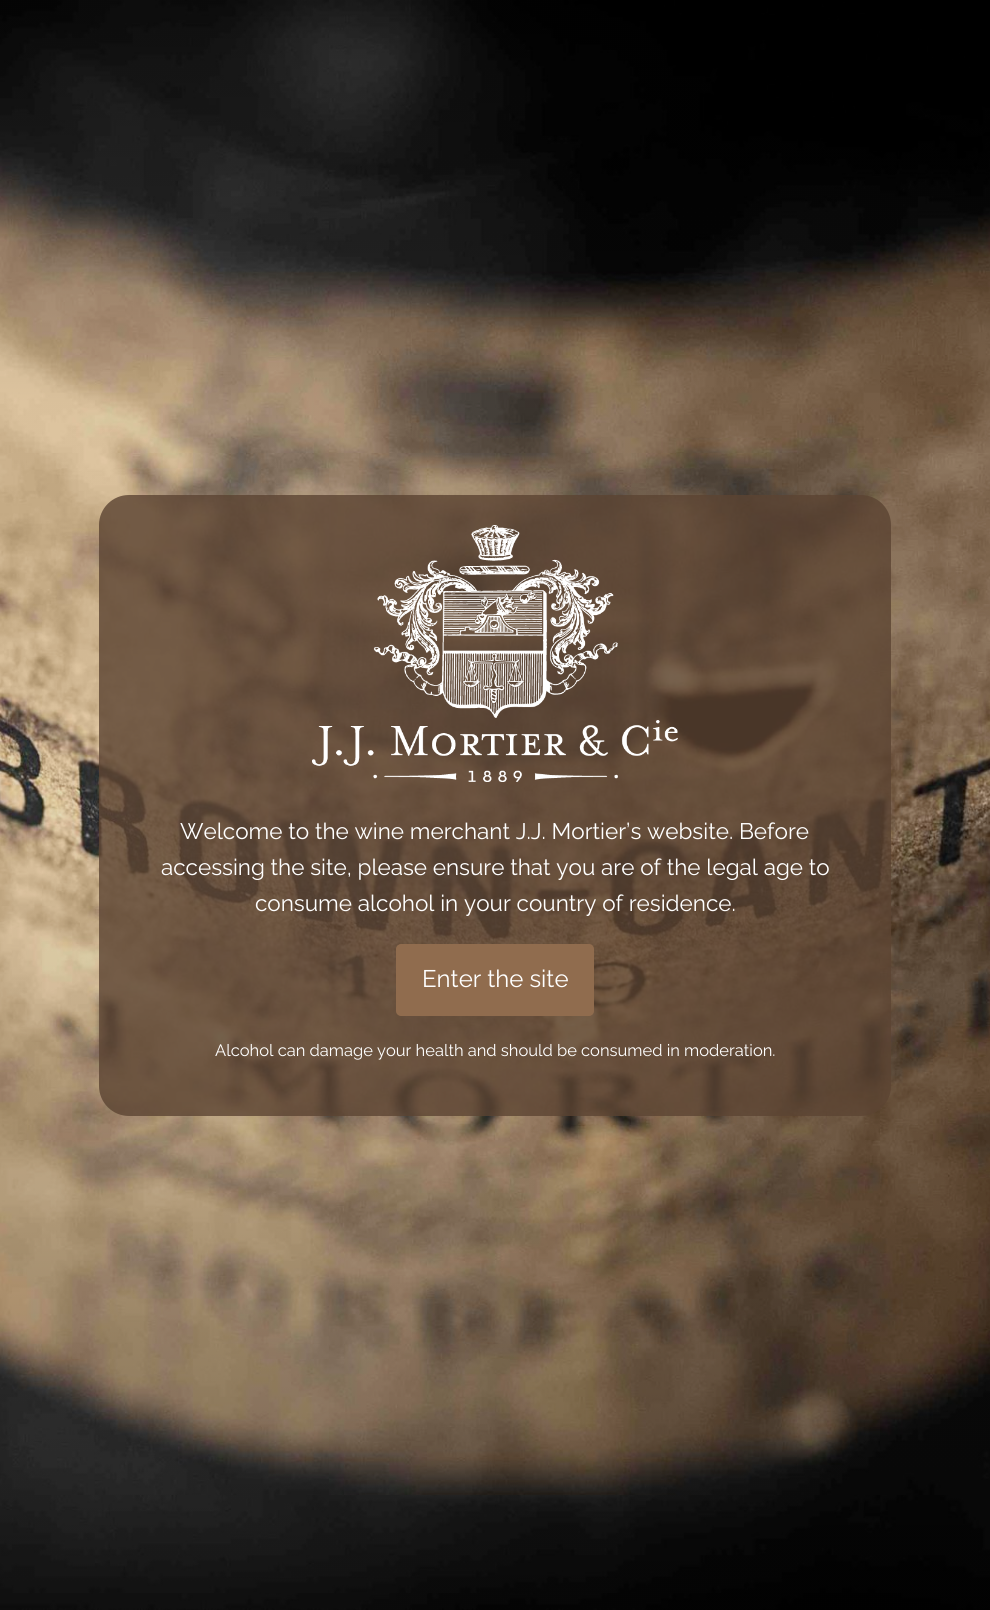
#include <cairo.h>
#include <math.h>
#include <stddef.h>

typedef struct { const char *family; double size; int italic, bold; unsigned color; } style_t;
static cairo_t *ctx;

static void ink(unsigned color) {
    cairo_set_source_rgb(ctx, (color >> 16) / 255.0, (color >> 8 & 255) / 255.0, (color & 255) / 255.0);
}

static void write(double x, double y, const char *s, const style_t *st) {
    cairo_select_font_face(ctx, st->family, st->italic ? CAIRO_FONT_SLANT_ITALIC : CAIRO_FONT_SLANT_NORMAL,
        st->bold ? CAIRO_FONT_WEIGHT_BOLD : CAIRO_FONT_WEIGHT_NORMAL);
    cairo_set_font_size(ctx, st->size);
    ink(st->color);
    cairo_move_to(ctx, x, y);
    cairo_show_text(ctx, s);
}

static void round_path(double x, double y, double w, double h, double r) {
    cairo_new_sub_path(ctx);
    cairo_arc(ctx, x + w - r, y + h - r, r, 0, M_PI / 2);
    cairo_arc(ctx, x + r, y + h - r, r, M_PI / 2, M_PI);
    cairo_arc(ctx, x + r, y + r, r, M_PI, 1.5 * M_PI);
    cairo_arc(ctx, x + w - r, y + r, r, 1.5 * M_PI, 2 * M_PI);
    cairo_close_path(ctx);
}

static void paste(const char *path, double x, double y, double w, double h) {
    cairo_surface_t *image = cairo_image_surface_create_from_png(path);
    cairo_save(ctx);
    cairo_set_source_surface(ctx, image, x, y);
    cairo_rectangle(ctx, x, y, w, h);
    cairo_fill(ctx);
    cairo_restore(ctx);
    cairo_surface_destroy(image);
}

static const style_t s1 = {"Raleway", 22.5, 0, 0, 0xffffff};
static const style_t s2 = {"Raleway", 24, 0, 0, 0xffffff};
static const style_t s3 = {"Raleway", 16.5, 0, 0, 0xffffff};

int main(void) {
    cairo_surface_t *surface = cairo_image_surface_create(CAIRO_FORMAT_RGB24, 990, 1610);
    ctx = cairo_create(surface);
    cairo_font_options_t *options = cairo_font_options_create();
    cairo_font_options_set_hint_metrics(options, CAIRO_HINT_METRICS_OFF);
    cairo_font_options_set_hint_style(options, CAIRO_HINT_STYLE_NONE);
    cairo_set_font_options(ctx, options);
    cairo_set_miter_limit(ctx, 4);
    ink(0xffffff);
    cairo_paint(ctx);
    paste("pic1.png", 0, 0, 990, 1610);
    cairo_set_source_rgba(ctx, 0.357, 0.267, 0.196, 0.8);
    round_path(99, 495, 792, 621, 30);
    cairo_fill(ctx);
    paste("pic2.png", 312, 525, 366, 257);
    write(180, 839, "Welcome to the wine merchant J.J. Mortier’s website. Before", &s1);
    write(161, 875, "accessing the site, please ensure that you are of the legal age to", &s1);
    write(255, 911, "consume alcohol in your country of residence.", &s1);
    ink(0x906c4e);
    round_path(397, 945, 196, 70, 4);
    cairo_fill_preserve(ctx);
    cairo_stroke(ctx);
    write(422, 987, "Enter the site", &s2);
    write(215, 1056, "Alcohol can damage your health and should be consumed in moderation.", &s3);
    cairo_surface_write_to_png(surface, "screenshot.png");
    cairo_font_options_destroy(options);
    cairo_destroy(ctx);
    cairo_surface_destroy(surface);
    return 0;
}
